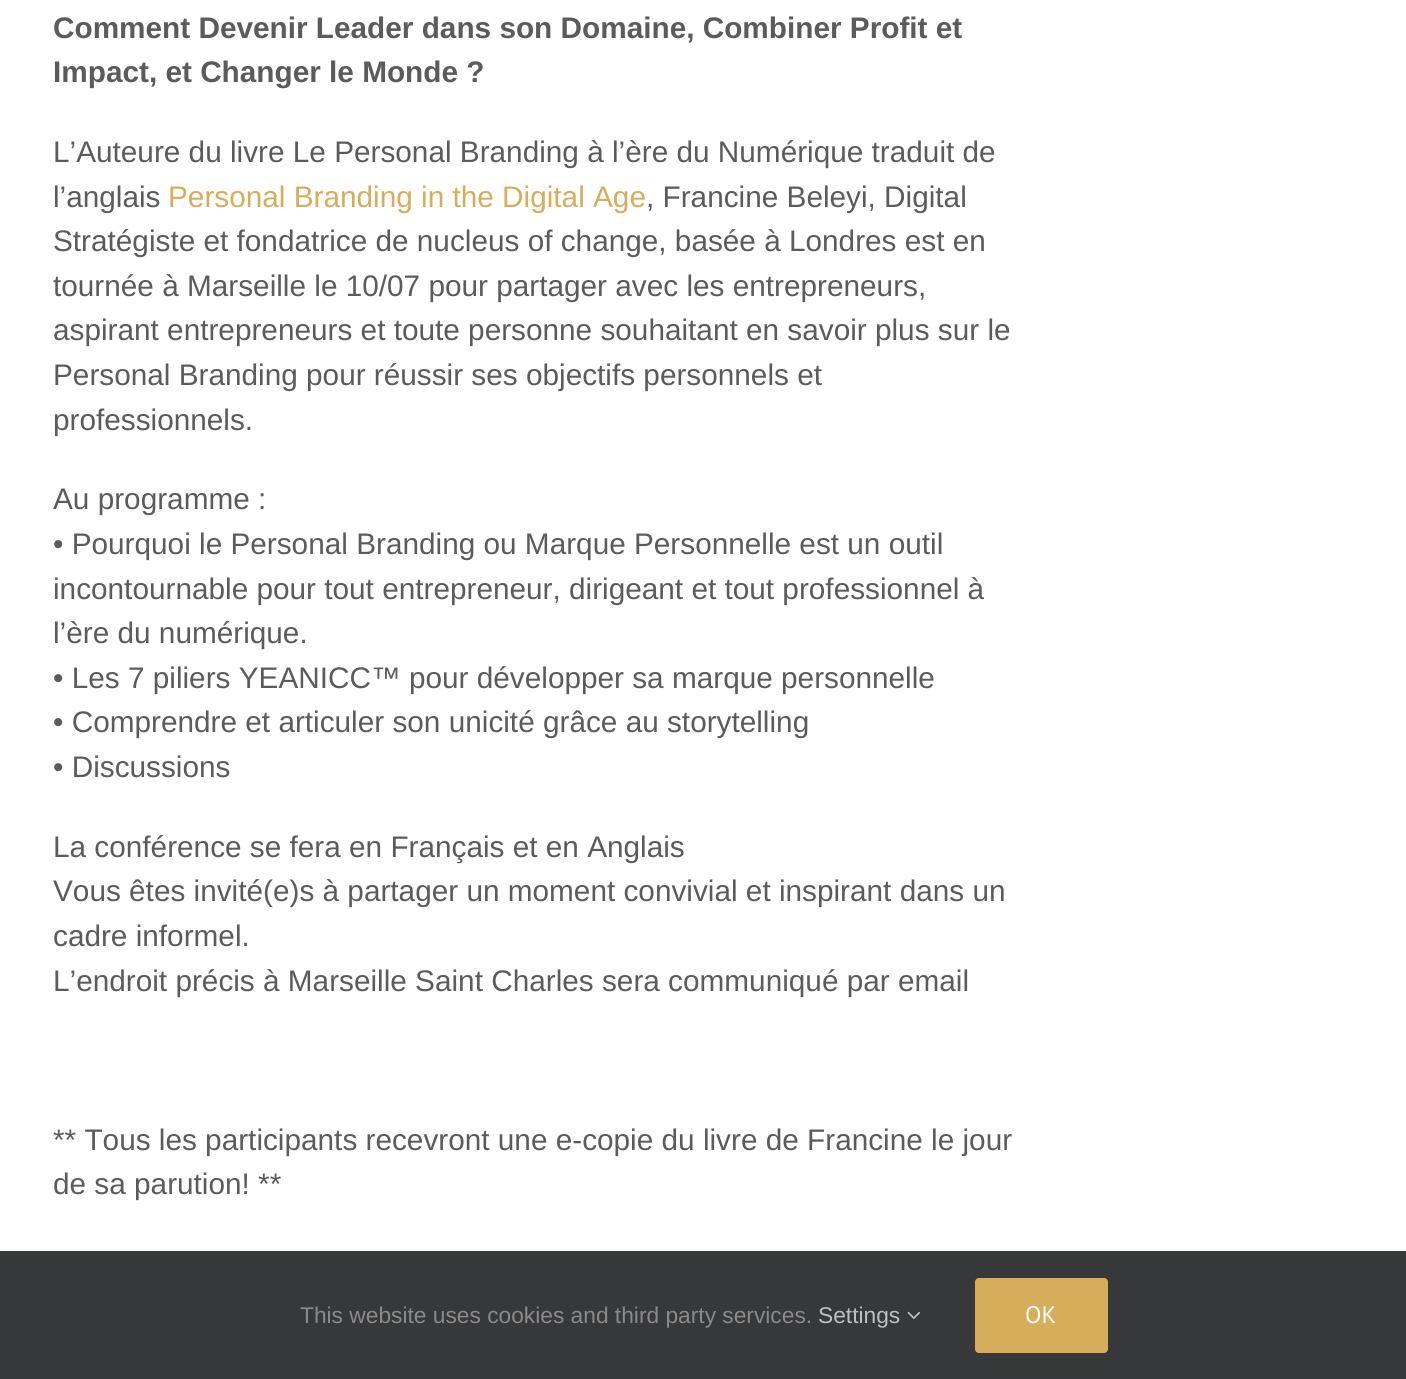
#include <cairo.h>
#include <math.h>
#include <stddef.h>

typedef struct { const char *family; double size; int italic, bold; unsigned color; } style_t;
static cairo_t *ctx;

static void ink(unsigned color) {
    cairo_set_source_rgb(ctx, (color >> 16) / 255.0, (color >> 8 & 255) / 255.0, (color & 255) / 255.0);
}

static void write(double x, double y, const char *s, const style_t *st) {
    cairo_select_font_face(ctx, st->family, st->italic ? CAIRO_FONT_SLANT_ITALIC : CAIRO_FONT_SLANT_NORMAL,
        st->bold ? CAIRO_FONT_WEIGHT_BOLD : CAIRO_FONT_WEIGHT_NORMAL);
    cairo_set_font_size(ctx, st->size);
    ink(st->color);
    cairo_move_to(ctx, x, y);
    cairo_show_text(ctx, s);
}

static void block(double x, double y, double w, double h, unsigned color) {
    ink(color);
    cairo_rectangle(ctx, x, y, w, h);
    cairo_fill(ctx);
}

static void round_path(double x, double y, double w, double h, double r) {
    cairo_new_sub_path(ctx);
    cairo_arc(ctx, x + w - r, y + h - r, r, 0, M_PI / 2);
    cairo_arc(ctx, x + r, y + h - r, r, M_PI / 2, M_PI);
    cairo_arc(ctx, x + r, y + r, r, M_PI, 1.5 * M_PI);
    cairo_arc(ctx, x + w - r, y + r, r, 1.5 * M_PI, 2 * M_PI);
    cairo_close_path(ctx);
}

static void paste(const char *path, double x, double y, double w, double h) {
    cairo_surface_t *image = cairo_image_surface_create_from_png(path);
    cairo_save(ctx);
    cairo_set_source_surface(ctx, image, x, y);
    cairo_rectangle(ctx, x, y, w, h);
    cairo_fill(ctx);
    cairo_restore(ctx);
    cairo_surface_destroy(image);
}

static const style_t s1 = {"Liberation Sans", 29.75, 0, 1, 0x5b5b5b};
static const style_t s2 = {"Liberation Sans", 29.75, 0, 0, 0x5b5b5b};
static const style_t s3 = {"Liberation Sans", 29.75, 0, 0, 0xd6ad5a};
static const style_t s4 = {"Liberation Sans", 22.75, 0, 0, 0x8c8989};
static const style_t s5 = {"Liberation Sans", 22.75, 0, 0, 0xbfbfbf};
static const style_t s6 = {"PT Sans", 24, 0, 0, 0xffffff};

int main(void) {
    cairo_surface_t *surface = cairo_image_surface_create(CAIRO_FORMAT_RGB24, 1406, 1379);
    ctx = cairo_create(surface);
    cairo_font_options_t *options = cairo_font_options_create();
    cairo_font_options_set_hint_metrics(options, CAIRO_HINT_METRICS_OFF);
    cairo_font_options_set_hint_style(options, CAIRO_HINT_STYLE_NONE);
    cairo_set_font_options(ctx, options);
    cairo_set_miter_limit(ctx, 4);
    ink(0xffffff);
    cairo_paint(ctx);
    write(53, 38, "Comment Devenir Leader dans son Domaine, Combiner Profit et", &s1);
    write(53, 82, "Impact, et Changer le Monde ?", &s1);
    write(53, 162, "L’Auteure du livre Le Personal Branding à l’ère du Numérique traduit de", &s2);
    write(53, 207, "l’anglais", &s2);
    write(168, 207, "Personal Branding in the Digital Age", &s3);
    write(646, 207, ", Francine Beleyi, Digital", &s2);
    write(53, 251, "Stratégiste et fondatrice de nucleus of change, basée à Londres est en", &s2);
    write(53, 296, "tournée à Marseille le 10/07 pour partager avec les entrepreneurs,", &s2);
    write(53, 340, "aspirant entrepreneurs et toute personne souhaitant en savoir plus sur le", &s2);
    write(53, 385, "Personal Branding pour réussir ses objectifs personnels et", &s2);
    write(53, 430, "professionnels.", &s2);
    write(53, 509, "Au programme :", &s2);
    write(53, 554, "• Pourquoi le Personal Branding ou Marque Personnelle est un outil", &s2);
    write(53, 599, "incontournable pour tout entrepreneur, dirigeant et tout professionnel à", &s2);
    write(53, 643, "l’ère du numérique.", &s2);
    write(53, 688, "• Les 7 piliers YEANICC™ pour développer sa marque personnelle", &s2);
    write(53, 732, "• Comprendre et articuler son unicité grâce au storytelling", &s2);
    write(53, 777, "• Discussions", &s2);
    write(53, 857, "La conférence se fera en Français et en Anglais", &s2);
    write(53, 901, "Vous êtes invité(e)s à partager un moment convivial et inspirant dans un", &s2);
    write(53, 946, "cadre informel.", &s2);
    write(53, 991, "L’endroit précis à Marseille Saint Charles sera communiqué par email", &s2);
    write(53, 1150, "** Tous les participants recevront une e-copie du livre de Francine le jour", &s2);
    write(53, 1194, "de sa parution! **", &s2);
    block(0, 1251, 1406, 128, 0x363839);
    write(300, 1323, "This website uses cookies and third party services.", &s4);
    write(818, 1323, "Settings", &s5);
    paste("pic1.png", 907, 1311, 14, 9);
    ink(0xd6ad5a);
    round_path(975, 1278, 133, 75, 4);
    cairo_fill(ctx);
    write(1025, 1323, "OK", &s6);
    cairo_surface_write_to_png(surface, "screenshot.png");
    cairo_font_options_destroy(options);
    cairo_destroy(ctx);
    cairo_surface_destroy(surface);
    return 0;
}
